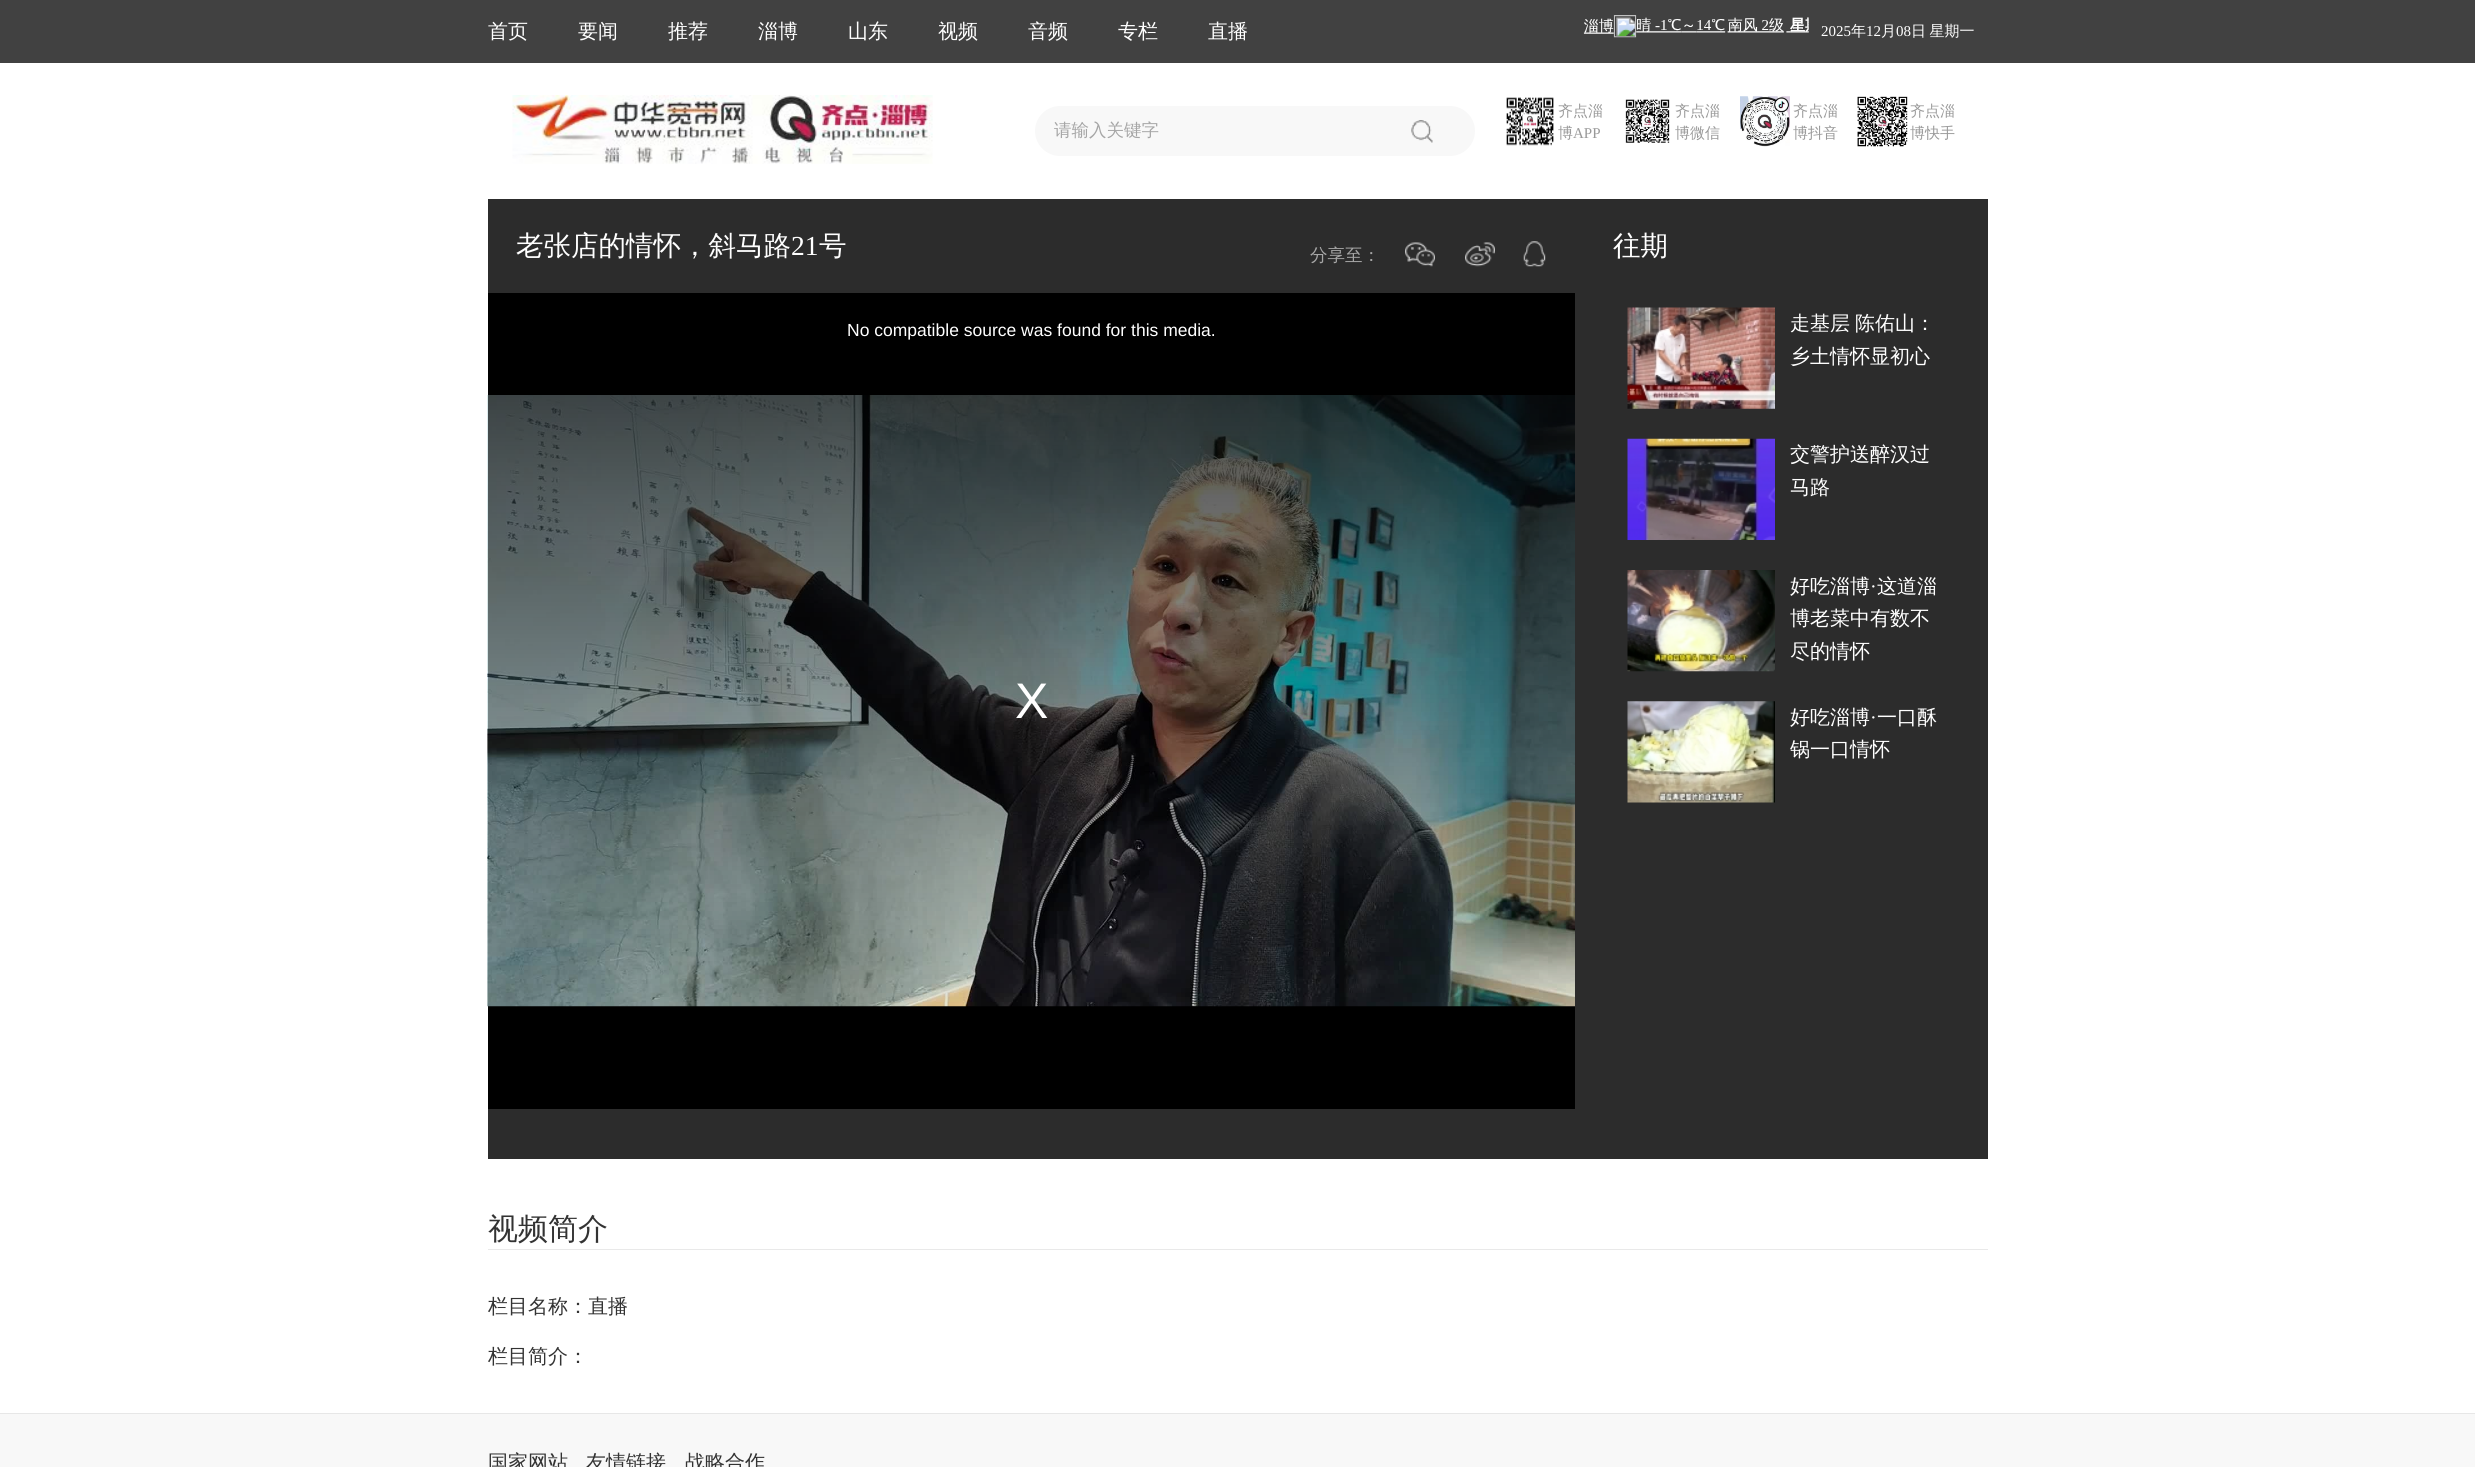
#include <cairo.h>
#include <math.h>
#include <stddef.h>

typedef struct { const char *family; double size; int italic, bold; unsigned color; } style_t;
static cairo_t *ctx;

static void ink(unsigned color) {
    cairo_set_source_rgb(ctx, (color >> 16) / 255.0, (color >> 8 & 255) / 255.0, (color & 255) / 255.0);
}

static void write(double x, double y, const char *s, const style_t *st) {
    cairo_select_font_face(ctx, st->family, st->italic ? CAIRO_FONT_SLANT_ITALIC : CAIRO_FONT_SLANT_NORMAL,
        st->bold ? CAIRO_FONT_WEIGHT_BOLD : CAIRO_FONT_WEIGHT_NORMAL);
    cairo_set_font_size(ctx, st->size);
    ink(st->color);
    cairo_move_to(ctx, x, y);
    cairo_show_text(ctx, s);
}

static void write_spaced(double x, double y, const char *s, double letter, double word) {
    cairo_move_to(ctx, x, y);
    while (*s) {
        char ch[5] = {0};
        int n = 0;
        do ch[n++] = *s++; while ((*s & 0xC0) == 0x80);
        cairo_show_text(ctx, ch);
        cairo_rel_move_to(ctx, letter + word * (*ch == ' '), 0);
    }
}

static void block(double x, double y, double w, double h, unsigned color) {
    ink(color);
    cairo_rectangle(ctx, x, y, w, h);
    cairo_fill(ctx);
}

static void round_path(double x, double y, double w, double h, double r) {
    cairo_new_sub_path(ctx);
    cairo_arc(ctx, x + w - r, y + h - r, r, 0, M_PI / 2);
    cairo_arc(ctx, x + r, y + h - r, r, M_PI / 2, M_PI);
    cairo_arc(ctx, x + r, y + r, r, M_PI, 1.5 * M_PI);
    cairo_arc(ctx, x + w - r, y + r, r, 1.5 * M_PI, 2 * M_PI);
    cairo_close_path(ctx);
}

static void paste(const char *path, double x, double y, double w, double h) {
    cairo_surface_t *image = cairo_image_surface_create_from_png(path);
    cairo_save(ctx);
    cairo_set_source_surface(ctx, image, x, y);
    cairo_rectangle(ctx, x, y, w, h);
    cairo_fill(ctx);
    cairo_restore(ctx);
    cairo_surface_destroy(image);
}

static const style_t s1 = {"WenQuanYi Zen Hei Medium", 20, 0, 0, 0xffffff};
static const style_t s2 = {"Liberation Serif", 15, 0, 0, 0xffffff};
static const style_t s3 = {"WenQuanYi Zen Hei Medium", 15, 0, 0, 0xffffff};
static const style_t s4 = {"WenQuanYi Zen Hei Medium", 17.5, 0, 0, 0xa6a6a6};
static const style_t s5 = {"WenQuanYi Zen Hei Medium", 15, 0, 0, 0x999999};
static const style_t s6 = {"Liberation Serif", 15, 0, 0, 0x999999};
static const style_t s7 = {"WenQuanYi Zen Hei Medium", 27.5, 0, 0, 0xffffff};
static const style_t s8 = {"Liberation Serif", 27.5, 0, 0, 0xffffff};
static const style_t s9 = {"Liberation Sans", 17.5, 0, 0, 0xffffff};
static const style_t s10 = {"Liberation Sans", 50, 0, 0, 0xffffff};
static const style_t s11 = {"Liberation Serif", 20, 0, 0, 0xffffff};
static const style_t s12 = {"WenQuanYi Zen Hei Medium", 30, 0, 0, 0x333333};
static const style_t s13 = {"WenQuanYi Zen Hei Medium", 20, 0, 0, 0x333333};

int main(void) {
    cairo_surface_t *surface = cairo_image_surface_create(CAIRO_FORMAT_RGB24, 2475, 1467);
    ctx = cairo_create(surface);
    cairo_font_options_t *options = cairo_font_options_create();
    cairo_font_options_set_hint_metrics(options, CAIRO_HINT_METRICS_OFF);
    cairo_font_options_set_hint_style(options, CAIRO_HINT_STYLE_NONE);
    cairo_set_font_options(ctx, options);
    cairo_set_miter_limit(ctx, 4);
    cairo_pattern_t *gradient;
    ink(0xffffff);
    cairo_paint(ctx);
    block(0, 0, 2475, 63, 0x414141);
    write(488, 38, "首页", &s1);
    write(578, 38, "要闻", &s1);
    write(668, 38, "推荐", &s1);
    write(758, 38, "淄博", &s1);
    write(848, 38, "山东", &s1);
    write(938, 38, "视频", &s1);
    write(1028, 38, "音频", &s1);
    write(1118, 38, "专栏", &s1);
    write(1208, 38, "直播", &s1);
    paste("pic1.png", 1583, 15, 226, 23);
    write(1821, 36, "2025", &s2);
    write(1851, 36, "年", &s3);
    write(1866, 36, "12", &s2);
    write(1881, 36, "月", &s3);
    write(1896, 36, "08", &s2);
    cairo_select_font_face(ctx, "WenQuanYi Zen Hei Medium", CAIRO_FONT_SLANT_NORMAL, CAIRO_FONT_WEIGHT_NORMAL);
    write_spaced(1911, 36, "日 星期一", 0, -1);
    paste("pic2.png", 512, 95, 421, 69);
    ink(0xf8f8f8);
    round_path(1035, 106, 440, 50, 25);
    cairo_fill(ctx);
    write(1054, 136, "请输入关键字", &s4);
    paste("pic3.png", 1411, 120, 22, 23);
    paste("pic4.png", 1506, 97, 48, 49);
    write(1558, 116, "齐点淄", &s5);
    write(1558, 138, "博", &s5);
    write(1573, 138, "APP", &s6);
    paste("pic5.png", 1625, 99, 45, 44);
    write(1675, 116, "齐点淄", &s5);
    write(1675, 138, "博微信", &s5);
    paste("pic6.png", 1740, 96, 50, 51);
    write(1793, 116, "齐点淄", &s5);
    write(1793, 138, "博抖音", &s5);
    paste("pic7.png", 1857, 96, 51, 51);
    write(1910, 116, "齐点淄", &s5);
    write(1910, 138, "博快手", &s5);
    block(488, 199, 1500, 960, 0x2c2c2c);
    write(516, 255, "老张店的情怀，斜马路", &s7);
    write(791, 255, "21", &s8);
    write(819, 255, "号", &s7);
    write(1310, 261, "分享至：", &s4);
    paste("pic8.png", 1405, 242, 30, 25);
    paste("pic9.png", 1465, 242, 30, 25);
    paste("pic10.png", 1523, 241, 23, 26);
    block(488, 293, 1087, 816, 0x000000);
    paste("pic12.png", 487, 395, 1, 612);
    paste("pic11.png", 487, 395, 1088, 612);
    gradient = cairo_pattern_create_linear(1031, 292, 1031, 1109);
    cairo_pattern_add_color_stop_rgba(gradient, 0, 0, 0, 0, 0.8);
    cairo_pattern_add_color_stop_rgba(gradient, 1, 0, 0, 0, 0);
    cairo_set_source(ctx, gradient);
    cairo_pattern_destroy(gradient);
    cairo_rectangle(ctx, 488, 395, 1087, 612);
    cairo_fill(ctx);
    write(847, 336, "No compatible source was found for this media.", &s9);
    write(1015, 718, "X", &s10);
    write(1613, 255, "往期", &s7);
    paste("pic13.png", 1627, 307, 148, 102);
    cairo_set_font_size(ctx, 20);
    write_spaced(1790, 330, "走基层 陈佑山：", 0, -1);
    write(1790, 363, "乡土情怀显初心", &s1);
    paste("pic14.png", 1627, 438, 148, 102);
    write(1790, 461, "交警护送醉汉过", &s1);
    write(1790, 494, "马路", &s1);
    paste("pic15.png", 1627, 570, 148, 102);
    write(1790, 593, "好吃淄博", &s1);
    write(1870, 593, "·", &s11);
    write(1877, 593, "这道淄", &s1);
    write(1790, 625, "博老菜中有数不", &s1);
    write(1790, 658, "尽的情怀", &s1);
    paste("pic16.png", 1627, 701, 148, 102);
    write(1790, 724, "好吃淄博", &s1);
    write(1870, 724, "·", &s11);
    write(1877, 724, "一口酥", &s1);
    write(1790, 756, "锅一口情怀", &s1);
    block(488, 1249, 1500, 1, 0xe9e9e9);
    write(488, 1239, "视频简介", &s12);
    write(488, 1313, "栏目名称：直播", &s13);
    write(488, 1363, "栏目简介：", &s13);
    block(0, 1414, 2475, 53, 0xf8f8f8);
    block(0, 1413, 2475, 1, 0xe7e7e7);
    write(488, 1469, "国家网站", &s13);
    write(586, 1469, "友情链接", &s13);
    write(685, 1469, "战略合作", &s13);
    cairo_surface_write_to_png(surface, "screenshot.png");
    cairo_font_options_destroy(options);
    cairo_destroy(ctx);
    cairo_surface_destroy(surface);
    return 0;
}
